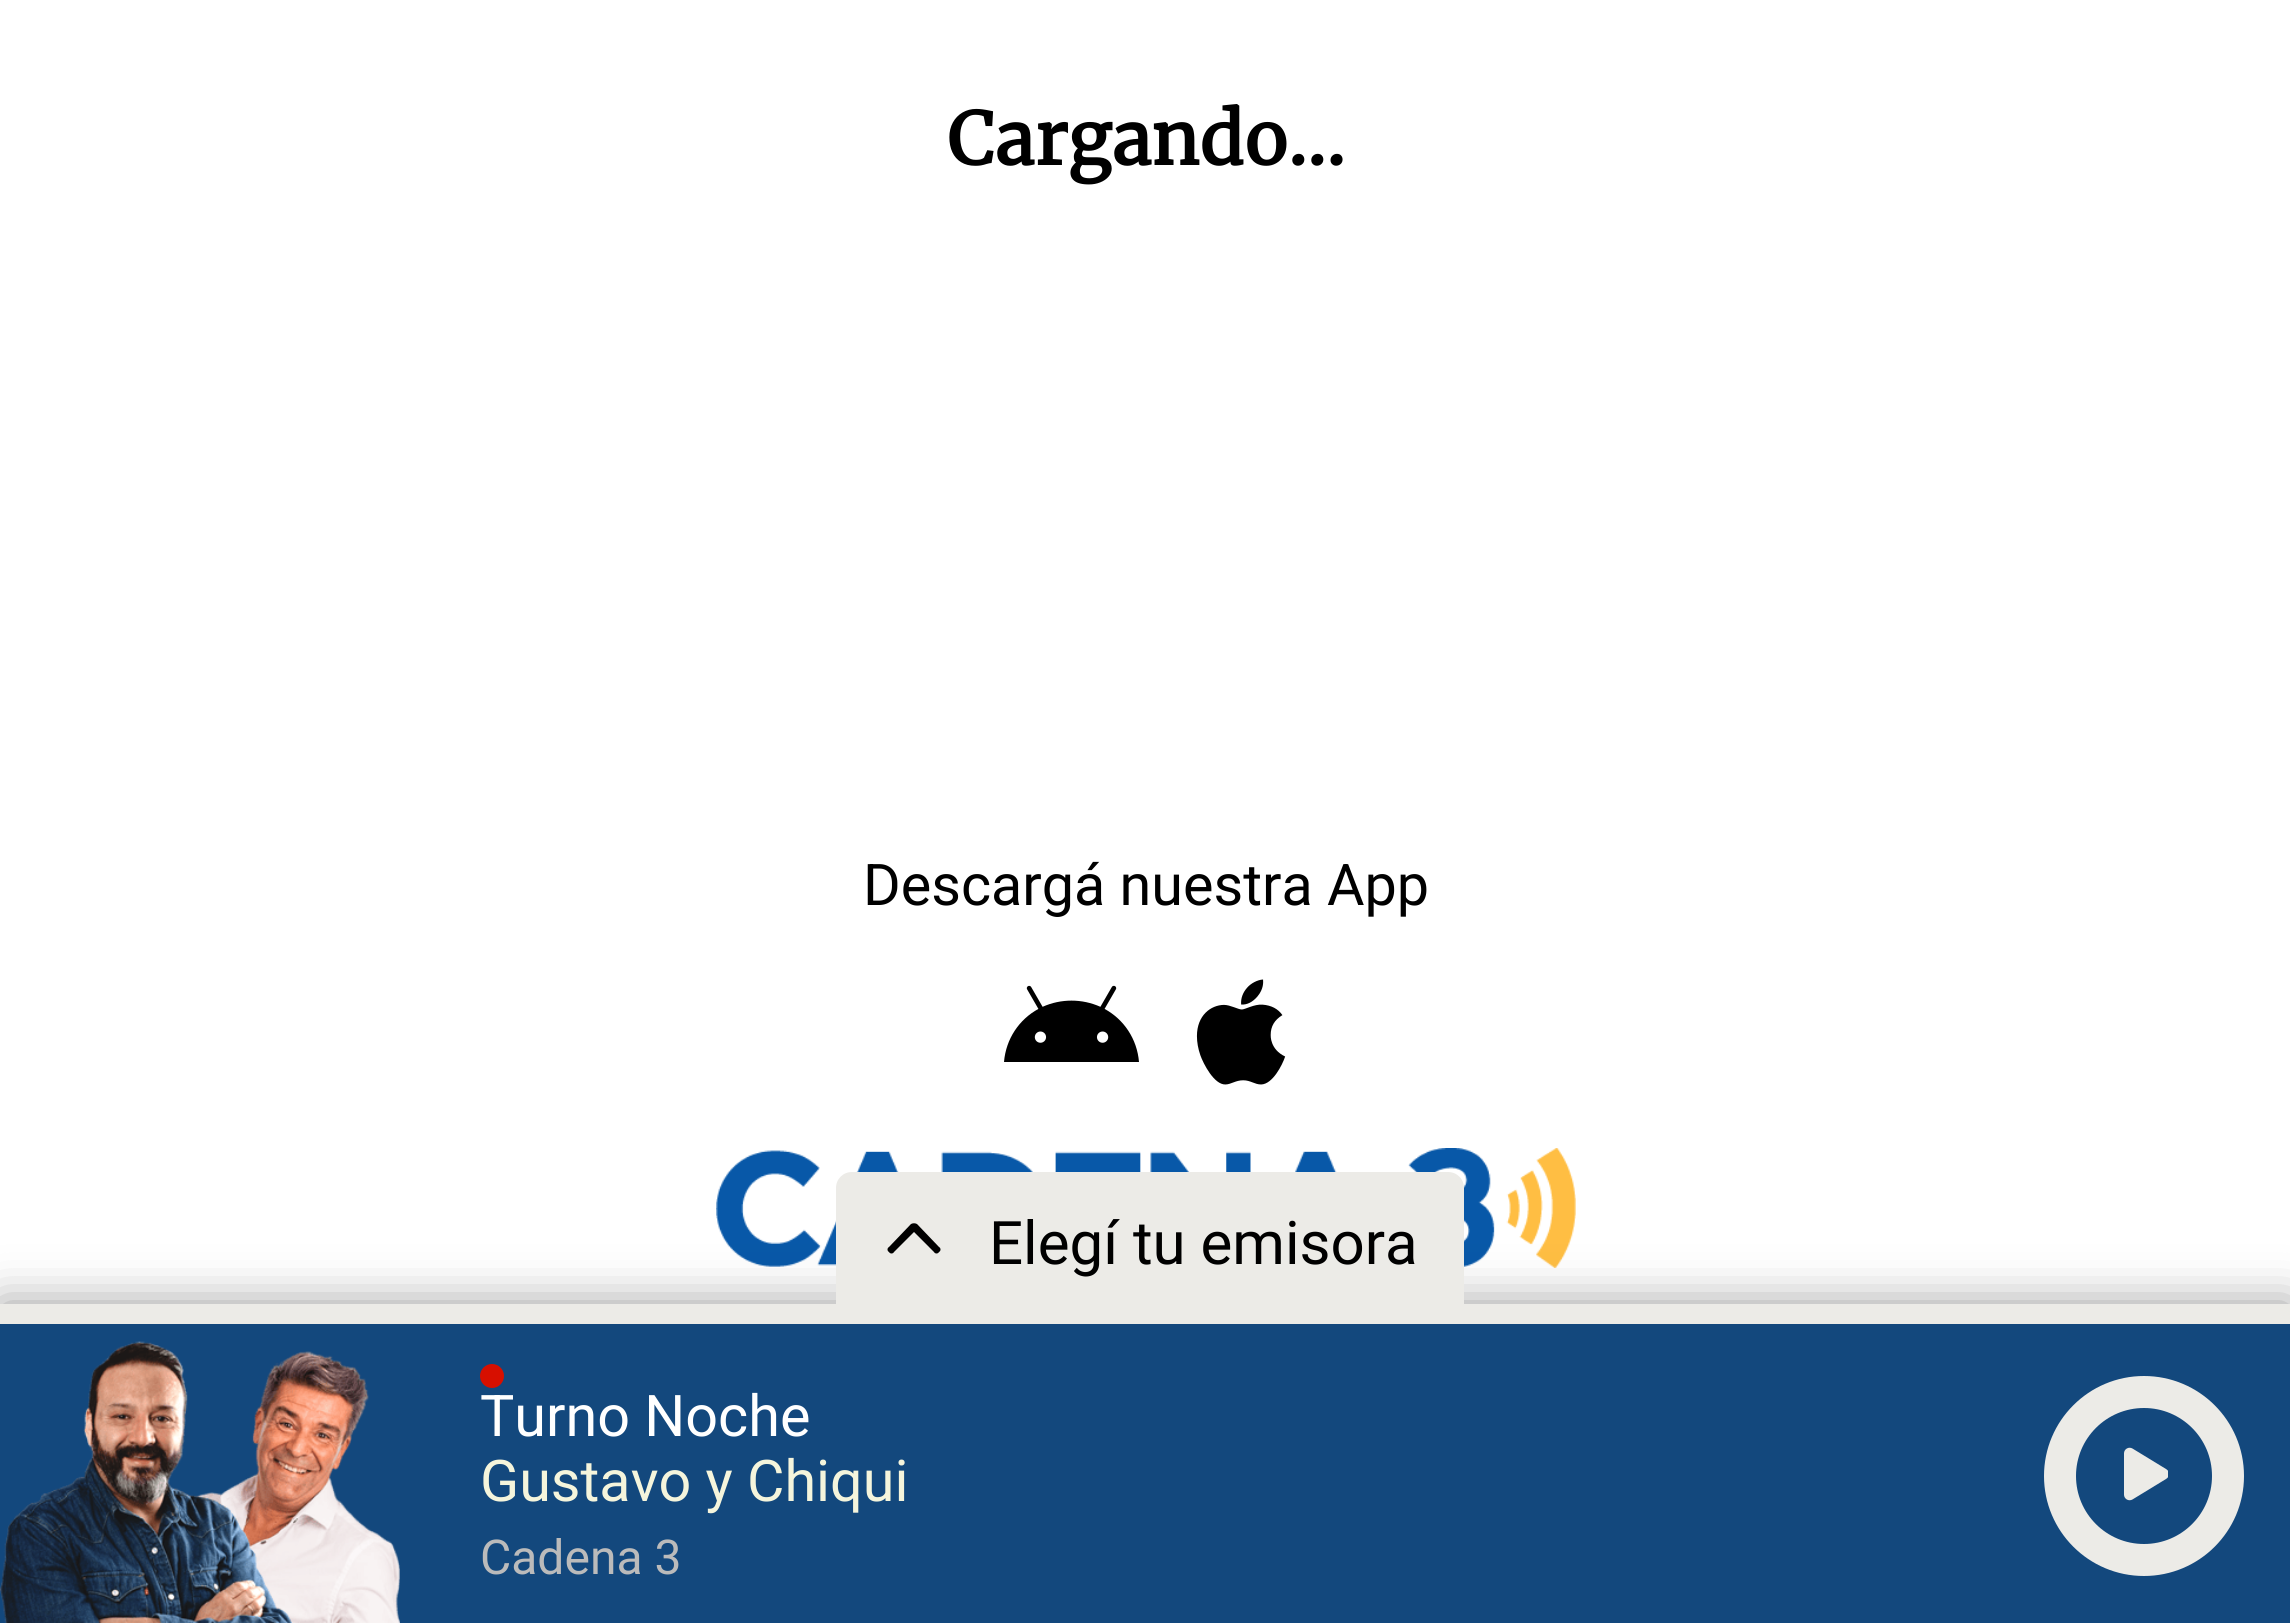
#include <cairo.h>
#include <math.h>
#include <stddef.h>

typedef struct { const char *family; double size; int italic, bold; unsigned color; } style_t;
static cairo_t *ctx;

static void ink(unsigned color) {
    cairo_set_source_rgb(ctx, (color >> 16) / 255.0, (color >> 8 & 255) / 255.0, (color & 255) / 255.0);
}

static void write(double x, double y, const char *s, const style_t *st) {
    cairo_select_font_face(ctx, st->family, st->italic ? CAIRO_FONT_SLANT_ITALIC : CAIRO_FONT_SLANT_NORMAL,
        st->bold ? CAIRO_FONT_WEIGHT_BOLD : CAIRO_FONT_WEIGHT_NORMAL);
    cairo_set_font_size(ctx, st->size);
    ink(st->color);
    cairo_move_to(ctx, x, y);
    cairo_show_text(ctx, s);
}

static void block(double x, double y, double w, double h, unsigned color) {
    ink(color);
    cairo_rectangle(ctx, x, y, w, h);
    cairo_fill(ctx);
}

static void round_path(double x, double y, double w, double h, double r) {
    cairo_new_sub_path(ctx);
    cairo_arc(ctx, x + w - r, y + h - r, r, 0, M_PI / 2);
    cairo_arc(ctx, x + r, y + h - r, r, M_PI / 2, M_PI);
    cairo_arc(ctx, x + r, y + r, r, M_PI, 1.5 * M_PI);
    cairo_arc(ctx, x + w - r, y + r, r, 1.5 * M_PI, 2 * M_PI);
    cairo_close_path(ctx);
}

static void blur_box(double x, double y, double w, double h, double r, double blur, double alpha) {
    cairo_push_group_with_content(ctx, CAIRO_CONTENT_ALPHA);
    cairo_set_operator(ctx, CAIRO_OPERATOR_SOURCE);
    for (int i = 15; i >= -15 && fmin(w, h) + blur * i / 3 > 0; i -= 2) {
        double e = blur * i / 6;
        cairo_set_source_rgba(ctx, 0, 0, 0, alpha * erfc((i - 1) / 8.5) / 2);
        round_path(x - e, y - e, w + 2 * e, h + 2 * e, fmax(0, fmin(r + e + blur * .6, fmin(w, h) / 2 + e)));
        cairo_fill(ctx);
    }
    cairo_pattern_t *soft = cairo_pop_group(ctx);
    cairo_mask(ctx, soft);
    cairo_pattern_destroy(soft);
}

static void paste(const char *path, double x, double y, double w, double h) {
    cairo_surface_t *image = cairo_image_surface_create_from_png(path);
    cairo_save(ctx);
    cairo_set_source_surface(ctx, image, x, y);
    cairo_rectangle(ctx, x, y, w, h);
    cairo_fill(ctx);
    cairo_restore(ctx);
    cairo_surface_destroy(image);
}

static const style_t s1 = {"Merriweather", 72, 0, 1, 0x000000};
static const style_t s2 = {"Roboto", 57.5, 0, 0, 0x000000};
static const style_t s3 = {"Roboto", 60, 0, 0, 0x000000};
static const style_t s4 = {"Roboto", 57.5, 0, 0, 0xffffff};
static const style_t s5 = {"Roboto", 57.5, 0, 0, 0xf5f5dc};
static const style_t s6 = {"Roboto", 48, 0, 0, 0xbbbbbb};

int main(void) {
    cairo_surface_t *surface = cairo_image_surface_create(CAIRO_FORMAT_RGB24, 2290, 1623);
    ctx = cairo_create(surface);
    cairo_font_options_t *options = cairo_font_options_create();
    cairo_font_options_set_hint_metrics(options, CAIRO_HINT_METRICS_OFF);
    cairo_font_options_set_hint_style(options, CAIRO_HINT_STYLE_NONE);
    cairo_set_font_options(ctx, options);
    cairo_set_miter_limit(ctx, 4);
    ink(0xffffff);
    cairo_paint(ctx);
    write(947, 165, "Cargando...", &s1);
    write(863, 905, "Descargá nuestra App", &s2);
    paste("pic1.png", 1004, 985, 135, 77);
    paste("pic2.png", 1196, 979, 90, 106);
    paste("pic3.png", 716, 1148, 860, 120);
    ink(0x000000);
    blur_box(0, 1304, 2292, 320, 0, 24, 0.4);
    block(0, 1324, 2290, 299, 0x13487d);
    block(0, 1304, 2290, 20, 0xecebe7);
    cairo_new_path(ctx);
    cairo_move_to(ctx, 852, 1172);
    cairo_line_to(ctx, 1448, 1172);
    cairo_curve_to(ctx, 1457, 1172, 1464, 1179, 1464, 1188);
    cairo_line_to(ctx, 1464, 1324);
    cairo_line_to(ctx, 836, 1324);
    cairo_line_to(ctx, 836, 1188);
    cairo_curve_to(ctx, 836, 1179, 843, 1172, 852, 1172);
    cairo_close_path(ctx);
    cairo_fill(ctx);
    ink(0x000000);
    cairo_new_path(ctx);
    cairo_move_to(ctx, 911, 1224);
    cairo_curve_to(ctx, 913, 1223, 915, 1223, 917, 1224);
    cairo_line_to(ctx, 939, 1247);
    cairo_curve_to(ctx, 941, 1248, 941, 1251, 939, 1252);
    cairo_curve_to(ctx, 938, 1254, 935, 1254, 934, 1252);
    cairo_line_to(ctx, 914, 1232);
    cairo_line_to(ctx, 894, 1252);
    cairo_curve_to(ctx, 893, 1254, 890, 1254, 889, 1252);
    cairo_curve_to(ctx, 887, 1251, 887, 1248, 889, 1247);
    cairo_close_path(ctx);
    cairo_fill(ctx);
    write(989, 1264, "Elegí tu emisora", &s3);
    paste("pic4.png", 0, 1341, 400, 282);
    ink(0xd70f00);
    cairo_arc(ctx, 492, 1376, 12, 0, 2 * M_PI);
    cairo_fill(ctx);
    write(480, 1436, "Turno Noche", &s4);
    write(480, 1501, "Gustavo y Chiqui", &s5);
    write(480, 1574, "Cadena 3", &s6);
    cairo_new_path(ctx);
    cairo_arc(ctx, 2144, 1476, 84, 0, 2 * M_PI);
    ink(0xecebe7);
    cairo_set_line_width(ctx, 32);
    cairo_stroke(ctx);
    paste("pic5.png", 2124, 1447, 44, 54);
    cairo_surface_write_to_png(surface, "screenshot.png");
    cairo_font_options_destroy(options);
    cairo_destroy(ctx);
    cairo_surface_destroy(surface);
    return 0;
}
